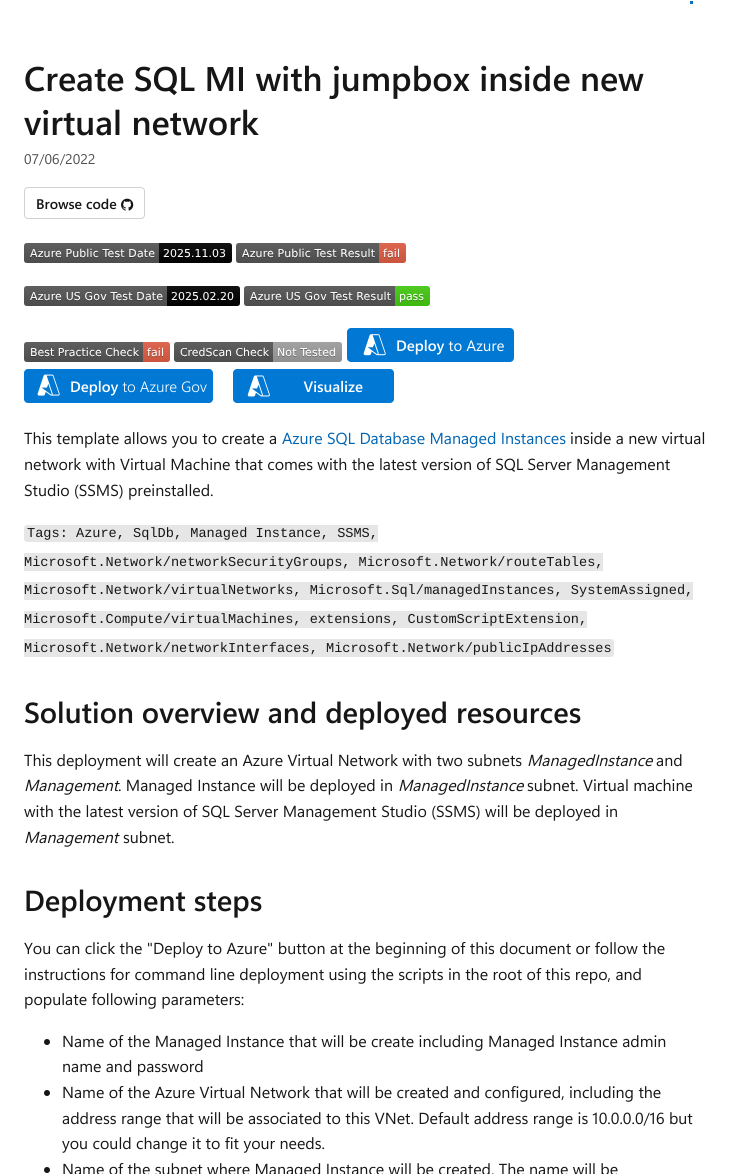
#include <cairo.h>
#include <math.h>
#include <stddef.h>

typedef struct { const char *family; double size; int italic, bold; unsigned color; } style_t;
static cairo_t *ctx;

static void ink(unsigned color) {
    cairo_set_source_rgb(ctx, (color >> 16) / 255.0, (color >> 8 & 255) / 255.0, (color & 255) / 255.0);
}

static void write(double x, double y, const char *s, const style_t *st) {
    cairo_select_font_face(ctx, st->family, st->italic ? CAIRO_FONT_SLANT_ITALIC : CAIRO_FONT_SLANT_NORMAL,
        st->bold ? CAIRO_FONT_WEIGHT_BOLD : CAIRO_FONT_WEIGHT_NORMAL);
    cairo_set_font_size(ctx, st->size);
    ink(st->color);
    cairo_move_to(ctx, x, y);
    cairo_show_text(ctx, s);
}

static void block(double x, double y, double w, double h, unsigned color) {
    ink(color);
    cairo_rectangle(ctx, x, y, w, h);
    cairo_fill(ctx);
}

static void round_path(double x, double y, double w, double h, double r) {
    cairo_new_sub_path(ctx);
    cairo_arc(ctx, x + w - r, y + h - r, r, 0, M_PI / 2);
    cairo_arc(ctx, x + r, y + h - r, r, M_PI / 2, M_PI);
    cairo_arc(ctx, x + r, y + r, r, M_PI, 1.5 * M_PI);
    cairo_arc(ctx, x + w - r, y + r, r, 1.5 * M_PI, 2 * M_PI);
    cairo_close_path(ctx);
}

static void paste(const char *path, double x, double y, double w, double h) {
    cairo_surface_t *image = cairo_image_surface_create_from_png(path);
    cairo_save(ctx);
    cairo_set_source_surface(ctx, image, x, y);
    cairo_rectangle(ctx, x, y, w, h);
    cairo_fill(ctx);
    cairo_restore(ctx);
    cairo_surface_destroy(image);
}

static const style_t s1 = {"Segoe UI SemiBold", 34.2, 0, 0, 0x161616};
static const style_t s2 = {"Segoe UI", 14, 0, 0, 0x505050};
static const style_t s3 = {"Segoe UI SemiBold", 14, 0, 0, 0x161616};
static const style_t s4 = {"Segoe UI", 16, 0, 0, 0x161616};
static const style_t s5 = {"Segoe UI", 16, 0, 0, 0x0065b3};
static const style_t s6 = {"Liberation Mono", 13.6, 0, 0, 0x161616};
static const style_t s7 = {"Segoe UI SemiBold", 29, 0, 0, 0x161616};
static const style_t s8 = {"Segoe UI", 16, 1, 0, 0x161616};

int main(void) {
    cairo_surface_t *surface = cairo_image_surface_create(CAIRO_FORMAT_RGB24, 733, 1174);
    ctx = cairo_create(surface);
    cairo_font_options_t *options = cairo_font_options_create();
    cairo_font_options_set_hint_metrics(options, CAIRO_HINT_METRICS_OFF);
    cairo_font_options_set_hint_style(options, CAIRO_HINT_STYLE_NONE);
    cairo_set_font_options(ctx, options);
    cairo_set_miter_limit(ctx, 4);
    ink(0xffffff);
    cairo_paint(ctx);
    block(690, 1, 3, 3, 0x0f6cbd);
    write(24, 91, "Create SQL MI with jumpbox inside new", &s1);
    write(24, 135, "virtual network", &s1);
    write(24, 164, "07/06/2022", &s2);
    round_path(24.5, 187.5, 120, 31, 3.5);
    ink(0xd1d1d1);
    cairo_set_line_width(ctx, 1);
    cairo_stroke(ctx);
    write(36, 209, "Browse code", &s3);
    paste("pic1.png", 121, 198, 13, 13);
    paste("pic2.png", 24, 243, 208, 20);
    paste("pic3.png", 236, 243, 170, 20);
    paste("pic4.png", 24, 286, 216, 20);
    paste("pic5.png", 244, 286, 186, 20);
    paste("pic6.png", 24, 342, 146, 20);
    paste("pic7.png", 174, 342, 168, 20);
    paste("pic8.png", 347, 328, 167, 34);
    paste("pic9.png", 24, 369, 189, 34);
    paste("pic10.png", 233, 369, 161, 34);
    write(24, 444, "This template allows you to create a", &s4);
    write(282, 444, "Azure SQL Database Managed Instances", &s5);
    write(570, 444, "inside a new virtual", &s4);
    write(24, 470, "network with Virtual Machine that comes with the latest version of SQL Server Management", &s4);
    write(24, 496, "Studio (SSMS) preinstalled.", &s4);
    ink(0xe6e6e6);
    cairo_new_path(ctx);
    cairo_move_to(ctx, 27, 525);
    cairo_line_to(ctx, 378, 525);
    cairo_line_to(ctx, 378, 542);
    cairo_line_to(ctx, 27, 542);
    cairo_curve_to(ctx, 25.5, 542, 24, 540.5, 24, 539);
    cairo_line_to(ctx, 24, 528);
    cairo_curve_to(ctx, 24, 526.5, 25.5, 525, 27, 525);
    cairo_close_path(ctx);
    cairo_fill(ctx);
    write(27, 537, "Tags: Azure, SqlDb, Managed Instance, SSMS,", &s6);
    block(24, 553, 579, 18, 0xe6e6e6);
    write(24, 566, "Microsoft.Network/networkSecurityGroups, Microsoft.Network/routeTables,", &s6);
    block(24, 582, 669, 18, 0xe6e6e6);
    write(24, 594, "Microsoft.Network/virtualNetworks, Microsoft.Sql/managedInstances, SystemAssigned,", &s6);
    block(24, 611, 563, 17, 0xe6e6e6);
    write(24, 623, "Microsoft.Compute/virtualMachines, extensions, CustomScriptExtension,", &s6);
    ink(0xe6e6e6);
    cairo_new_path(ctx);
    cairo_move_to(ctx, 24, 639);
    cairo_line_to(ctx, 611, 639);
    cairo_curve_to(ctx, 612.5, 639, 614, 640.5, 614, 642);
    cairo_line_to(ctx, 614, 654);
    cairo_curve_to(ctx, 614, 655.5, 612.5, 657, 611, 657);
    cairo_line_to(ctx, 24, 657);
    cairo_close_path(ctx);
    cairo_fill(ctx);
    write(24, 652, "Microsoft.Network/networkInterfaces, Microsoft.Network/publicIpAddresses", &s6);
    write(24, 723, "Solution overview and deployed resources", &s7);
    write(24, 766, "This deployment will create an Azure Virtual Network with two subnets", &s4);
    write(527, 766, "ManagedInstance", &s8);
    write(656, 766, "and", &s4);
    write(24, 791, "Management", &s8);
    write(118, 791, ". Managed Instance will be deployed in", &s4);
    write(398, 791, "ManagedInstance", &s8);
    write(527, 791, "subnet. Virtual machine", &s4);
    write(24, 817, "with the latest version of SQL Server Management Studio (SSMS) will be deployed in", &s4);
    write(24, 843, "Management", &s8);
    write(123, 843, "subnet.", &s4);
    write(24, 911, "Deployment steps", &s7);
    write(24, 954, "You can click the \"Deploy to Azure\" button at the beginning of this document or follow the", &s4);
    write(24, 980, "instructions for command line deployment using the scripts in the root of this repo, and", &s4);
    write(24, 1005, "populate following parameters:", &s4);
    cairo_new_path(ctx);
    cairo_arc(ctx, 47, 1042, 3, 0, 2 * M_PI);
    cairo_fill(ctx);
    write(62, 1047, "Name of the Managed Instance that will be create including Managed Instance admin", &s4);
    write(62, 1072, "name and password", &s4);
    cairo_new_path(ctx);
    cairo_arc(ctx, 47, 1093, 3, 0, 2 * M_PI);
    cairo_fill(ctx);
    write(62, 1098, "Name of the Azure Virtual Network that will be created and configured, including the", &s4);
    write(62, 1124, "address range that will be associated to this VNet. Default address range is 10.0.0.0/16 but", &s4);
    write(62, 1149, "you could change it to fit your needs.", &s4);
    cairo_new_path(ctx);
    cairo_arc(ctx, 47, 1170, 3, 0, 2 * M_PI);
    cairo_fill(ctx);
    write(62, 1175, "Name of the subnet where Managed Instance will be created. The name will be", &s4);
    cairo_surface_write_to_png(surface, "screenshot.png");
    cairo_font_options_destroy(options);
    cairo_destroy(ctx);
    cairo_surface_destroy(surface);
    return 0;
}
